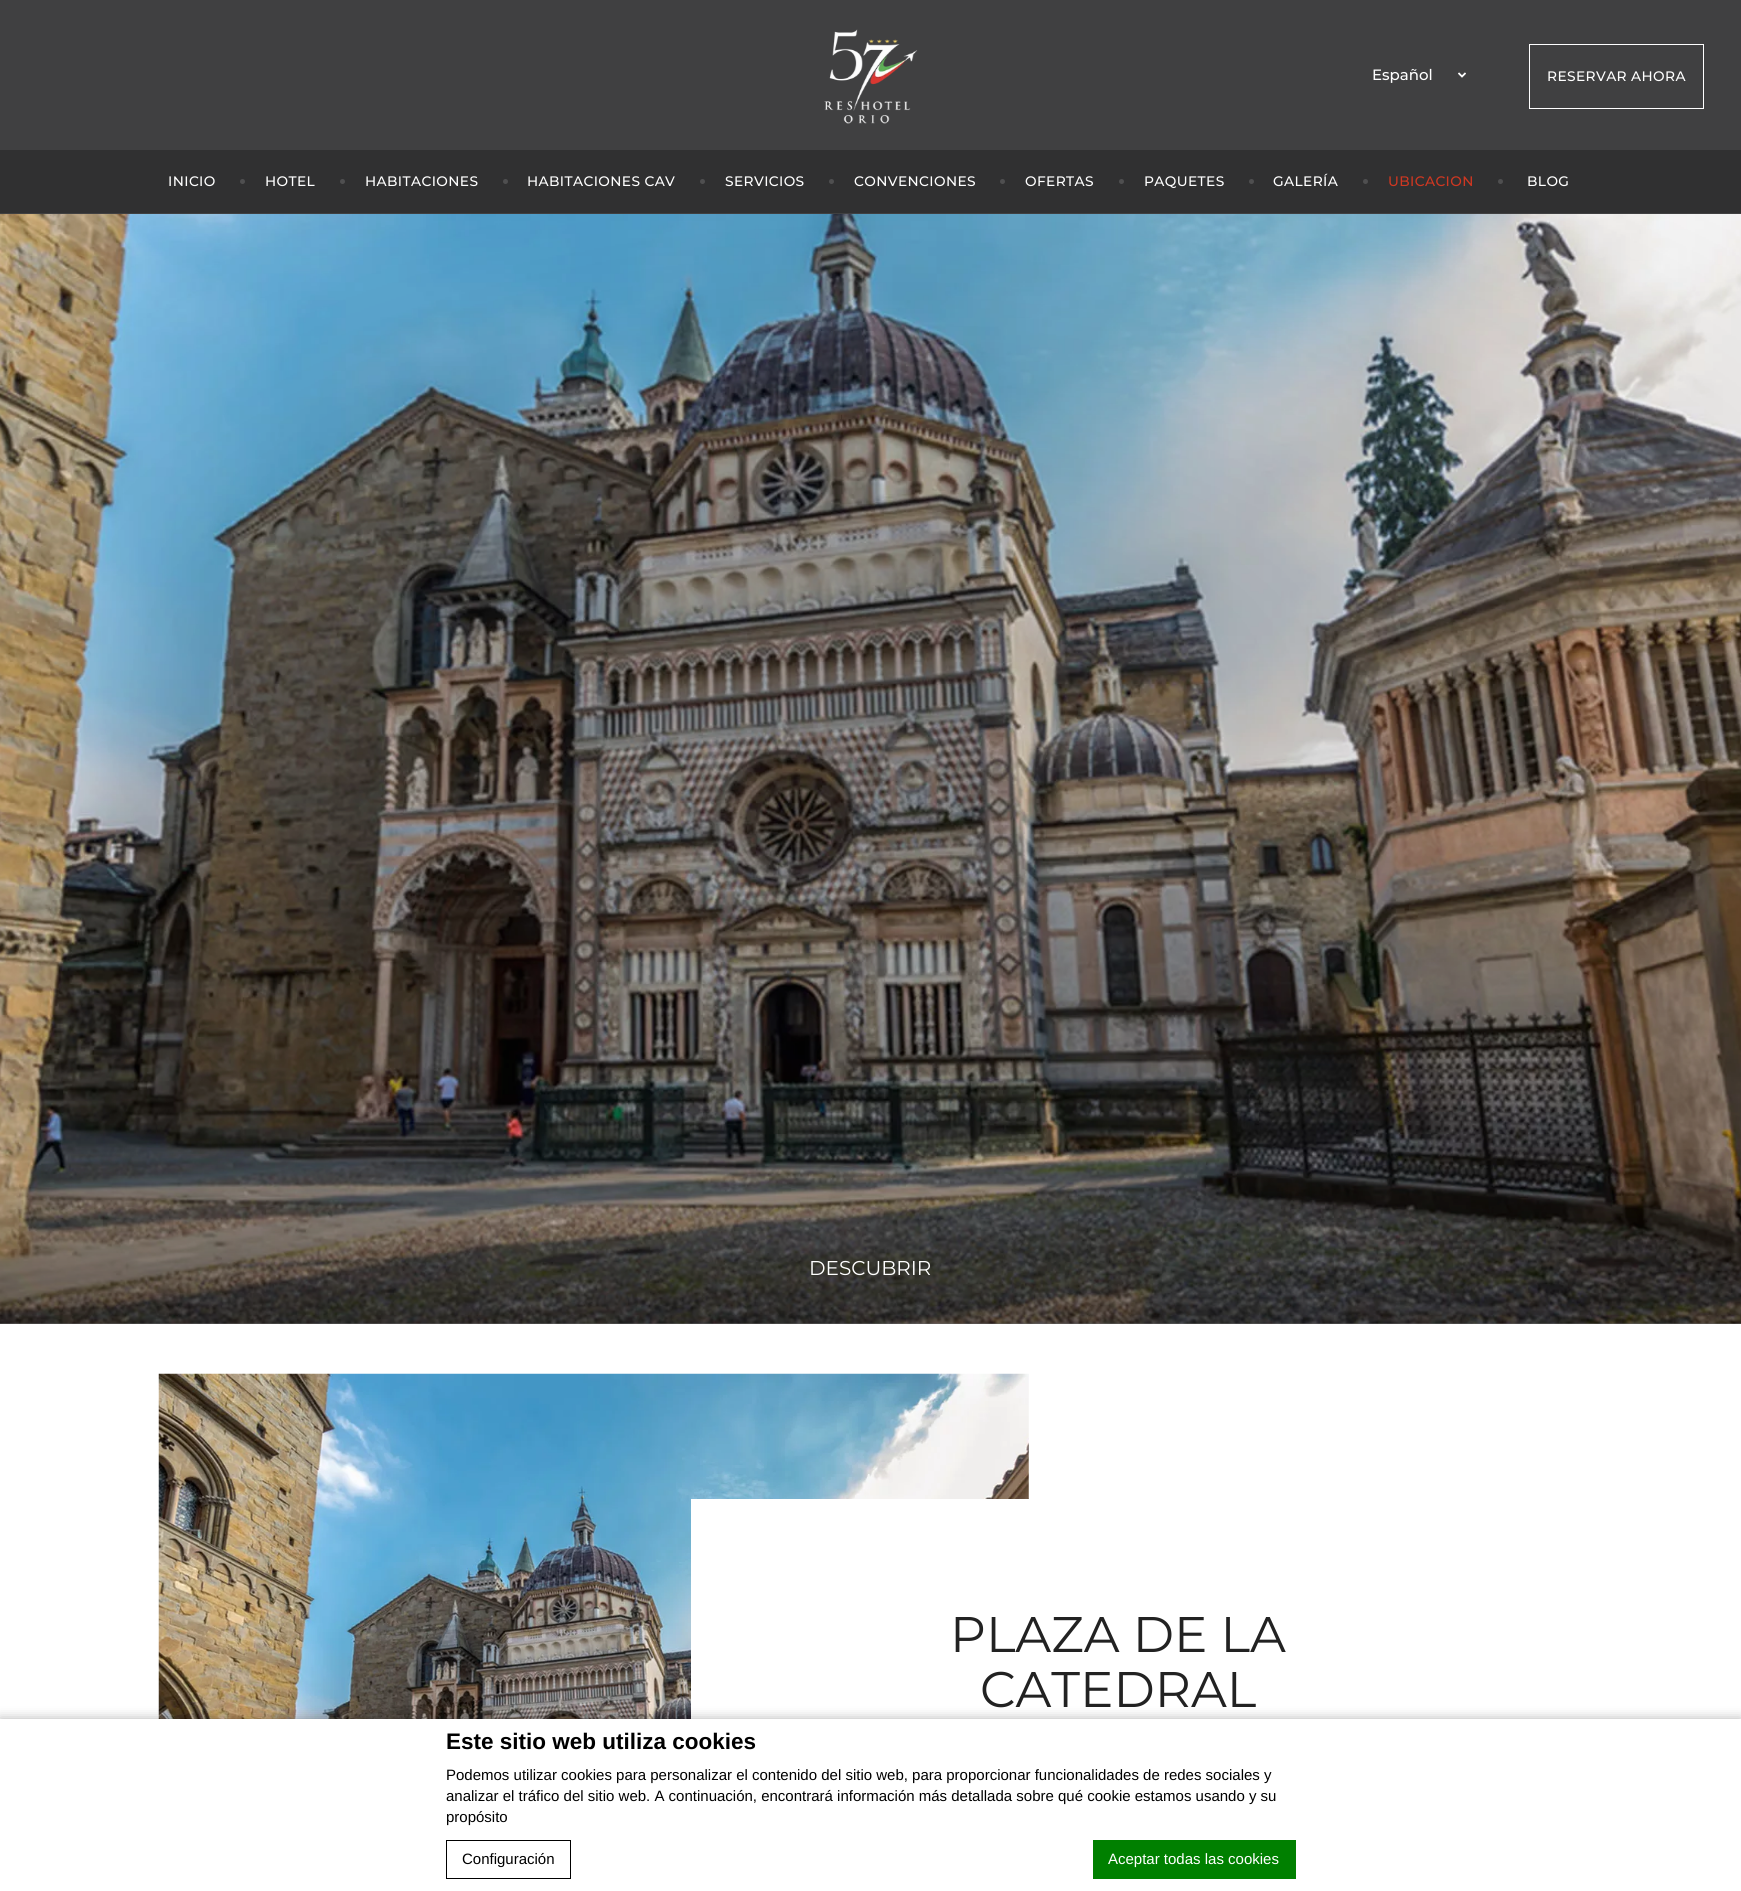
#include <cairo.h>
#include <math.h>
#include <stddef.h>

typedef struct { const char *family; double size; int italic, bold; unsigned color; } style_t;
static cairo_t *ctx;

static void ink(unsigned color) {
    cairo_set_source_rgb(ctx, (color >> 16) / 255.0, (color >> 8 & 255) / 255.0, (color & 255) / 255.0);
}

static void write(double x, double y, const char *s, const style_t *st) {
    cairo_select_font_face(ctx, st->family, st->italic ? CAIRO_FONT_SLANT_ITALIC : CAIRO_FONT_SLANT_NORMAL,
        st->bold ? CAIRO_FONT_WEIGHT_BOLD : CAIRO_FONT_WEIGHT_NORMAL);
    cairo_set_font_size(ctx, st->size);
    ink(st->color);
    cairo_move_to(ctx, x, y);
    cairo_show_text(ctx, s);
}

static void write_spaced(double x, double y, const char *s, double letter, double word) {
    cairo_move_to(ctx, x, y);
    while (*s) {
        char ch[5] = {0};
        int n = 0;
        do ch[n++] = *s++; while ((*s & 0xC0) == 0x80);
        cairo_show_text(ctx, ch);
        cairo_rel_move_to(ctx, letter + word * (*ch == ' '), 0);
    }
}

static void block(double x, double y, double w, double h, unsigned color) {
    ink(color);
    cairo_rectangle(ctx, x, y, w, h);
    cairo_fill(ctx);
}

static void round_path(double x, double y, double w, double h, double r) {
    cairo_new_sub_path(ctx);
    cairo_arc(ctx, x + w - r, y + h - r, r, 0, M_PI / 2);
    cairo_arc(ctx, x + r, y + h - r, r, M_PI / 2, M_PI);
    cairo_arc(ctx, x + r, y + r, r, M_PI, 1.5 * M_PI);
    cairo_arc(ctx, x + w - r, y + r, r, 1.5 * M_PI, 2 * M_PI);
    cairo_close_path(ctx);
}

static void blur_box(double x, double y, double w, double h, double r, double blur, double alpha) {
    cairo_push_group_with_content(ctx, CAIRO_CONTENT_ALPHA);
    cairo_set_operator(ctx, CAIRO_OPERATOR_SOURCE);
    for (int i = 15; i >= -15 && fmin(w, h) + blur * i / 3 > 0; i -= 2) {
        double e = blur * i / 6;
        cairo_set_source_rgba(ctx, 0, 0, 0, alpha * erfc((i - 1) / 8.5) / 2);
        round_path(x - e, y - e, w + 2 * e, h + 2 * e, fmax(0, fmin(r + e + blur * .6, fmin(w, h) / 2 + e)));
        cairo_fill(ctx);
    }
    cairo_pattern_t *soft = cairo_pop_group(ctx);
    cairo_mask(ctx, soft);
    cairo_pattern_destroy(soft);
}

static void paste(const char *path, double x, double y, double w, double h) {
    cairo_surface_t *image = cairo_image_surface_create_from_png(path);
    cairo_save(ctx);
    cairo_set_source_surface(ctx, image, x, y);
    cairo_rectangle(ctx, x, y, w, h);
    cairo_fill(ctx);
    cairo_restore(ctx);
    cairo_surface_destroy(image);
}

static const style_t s1 = {"Montserrat Medium", 15, 0, 0, 0xffffff};
static const style_t s2 = {"Montserrat", 20, 0, 0, 0xffffff};
static const style_t s3 = {"Montserrat", 50, 0, 0, 0x222222};
static const style_t s4 = {"Liberation Sans", 22.5, 0, 1, 0x000000};
static const style_t s5 = {"Liberation Sans", 15, 0, 0, 0x000000};
static const style_t s6 = {"Liberation Sans", 15, 0, 0, 0xffffff};

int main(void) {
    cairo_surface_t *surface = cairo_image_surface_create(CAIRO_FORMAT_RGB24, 1741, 1891);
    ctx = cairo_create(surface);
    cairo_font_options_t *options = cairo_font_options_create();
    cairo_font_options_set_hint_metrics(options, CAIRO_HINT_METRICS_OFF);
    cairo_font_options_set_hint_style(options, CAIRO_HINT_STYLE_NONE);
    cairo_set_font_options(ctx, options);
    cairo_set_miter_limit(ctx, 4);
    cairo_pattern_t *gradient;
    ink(0xffffff);
    cairo_paint(ctx);
    block(0, 0, 1741, 150, 0x404041);
    paste("pic1.png", 824, 29, 94, 95);
    write(1372, 80, "Español", &s1);
    paste("pic2.png", 1458, 72, 8, 6);
    cairo_rectangle(ctx, 1529.5, 44.5, 174, 64);
    cairo_set_line_width(ctx, 1);
    cairo_stroke(ctx);
    cairo_set_font_size(ctx, 13.75);
    write_spaced(1547, 81, "RESERVAR AHORA", 0.4, 0);
    block(0, 150, 1741, 63, 0x303031);
    block(0, 213, 1741, 1, 0x404041);
    ink(0xffffff);
    write_spaced(168, 186, "INICIO", 0.4, 0);
    ink(0x4f4f50);
    cairo_new_path(ctx);
    cairo_arc(ctx, 242.5, 181.5, 2.5, 0, 2 * M_PI);
    cairo_fill(ctx);
    ink(0xffffff);
    write_spaced(265, 186, "HOTEL", 0.4, 0);
    ink(0x4f4f50);
    cairo_new_path(ctx);
    cairo_arc(ctx, 342.5, 181.5, 2.5, 0, 2 * M_PI);
    cairo_fill(ctx);
    ink(0xffffff);
    write_spaced(365, 186, "HABITACIONES", 0.4, 0);
    ink(0x4f4f50);
    cairo_new_path(ctx);
    cairo_arc(ctx, 505.5, 181.5, 2.5, 0, 2 * M_PI);
    cairo_fill(ctx);
    ink(0xffffff);
    write_spaced(527, 186, "HABITACIONES CAV", 0.4, 0);
    ink(0x4f4f50);
    cairo_new_path(ctx);
    cairo_arc(ctx, 702.5, 181.5, 2.5, 0, 2 * M_PI);
    cairo_fill(ctx);
    ink(0xffffff);
    write_spaced(725, 186, "SERVICIOS", 0.4, 0);
    ink(0x4f4f50);
    cairo_new_path(ctx);
    cairo_arc(ctx, 831.5, 181.5, 2.5, 0, 2 * M_PI);
    cairo_fill(ctx);
    ink(0xffffff);
    write_spaced(854, 186, "CONVENCIONES", 0.4, 0);
    ink(0x4f4f50);
    cairo_new_path(ctx);
    cairo_arc(ctx, 1002.5, 181.5, 2.5, 0, 2 * M_PI);
    cairo_fill(ctx);
    ink(0xffffff);
    write_spaced(1025, 186, "OFERTAS", 0.4, 0);
    ink(0x4f4f50);
    cairo_new_path(ctx);
    cairo_arc(ctx, 1121.5, 181.5, 2.5, 0, 2 * M_PI);
    cairo_fill(ctx);
    ink(0xffffff);
    write_spaced(1144, 186, "PAQUETES", 0.4, 0);
    ink(0x4f4f50);
    cairo_new_path(ctx);
    cairo_arc(ctx, 1251.5, 181.5, 2.5, 0, 2 * M_PI);
    cairo_fill(ctx);
    ink(0xffffff);
    write_spaced(1273, 186, "GALERÍA", 0.4, 0);
    ink(0x4f4f50);
    cairo_new_path(ctx);
    cairo_arc(ctx, 1365.5, 181.5, 2.5, 0, 2 * M_PI);
    cairo_fill(ctx);
    ink(0xcf3721);
    write_spaced(1388, 186, "UBICACION", 0.4, 0);
    ink(0x4f4f50);
    cairo_new_path(ctx);
    cairo_arc(ctx, 1500.5, 181.5, 2.5, 0, 2 * M_PI);
    cairo_fill(ctx);
    ink(0xffffff);
    write_spaced(1527, 186, "BLOG", 0.4, 0);
    block(0, 1323, 1741, 1, 0xcccccc);
    paste("pic3.png", 0, 214, 1741, 1110);
    paste("pic4.png", 0, 214, 1741, 1109);
    gradient = cairo_pattern_create_linear(871, 1141, 871, 1324);
    cairo_pattern_add_color_stop_rgba(gradient, 0, 0, 0, 0, 0);
    cairo_pattern_add_color_stop_rgba(gradient, 1, 0, 0, 0, 0.5);
    cairo_set_source(ctx, gradient);
    cairo_pattern_destroy(gradient);
    cairo_rectangle(ctx, 0, 1149, 1741, 175);
    cairo_fill(ctx);
    write(809, 1275, "DESCUBRIR", &s2);
    paste("pic5.png", 158, 1373, 871, 346);
    block(691, 1499, 338, 220, 0xffffff);
    write(950, 1652, "PLAZA DE LA", &s3);
    write(980, 1707, "CATEDRAL", &s3);
    ink(0x000000);
    blur_box(0, 1719, 1741, 172, 0, 6, 0.3);
    block(0, 1719, 1741, 172, 0xffffff);
    write(446, 1749, "Este sitio web utiliza cookies", &s4);
    write(446, 1780, "Podemos utilizar cookies para personalizar el contenido del sitio web, para proporcionar funcionalidades de redes sociales y", &s5);
    write(446, 1801, "analizar el tráfico del sitio web. A continuación, encontrará información más detallada sobre qué cookie estamos usando y su", &s5);
    write(446, 1822, "propósito", &s5);
    cairo_rectangle(ctx, 446.5, 1840.5, 124, 38);
    cairo_stroke(ctx);
    write(462, 1864, "Configuración", &s5);
    block(1093, 1840, 203, 39, 0x008000);
    write(1108, 1864, "Aceptar todas las cookies", &s6);
    cairo_surface_write_to_png(surface, "screenshot.png");
    cairo_font_options_destroy(options);
    cairo_destroy(ctx);
    cairo_surface_destroy(surface);
    return 0;
}
